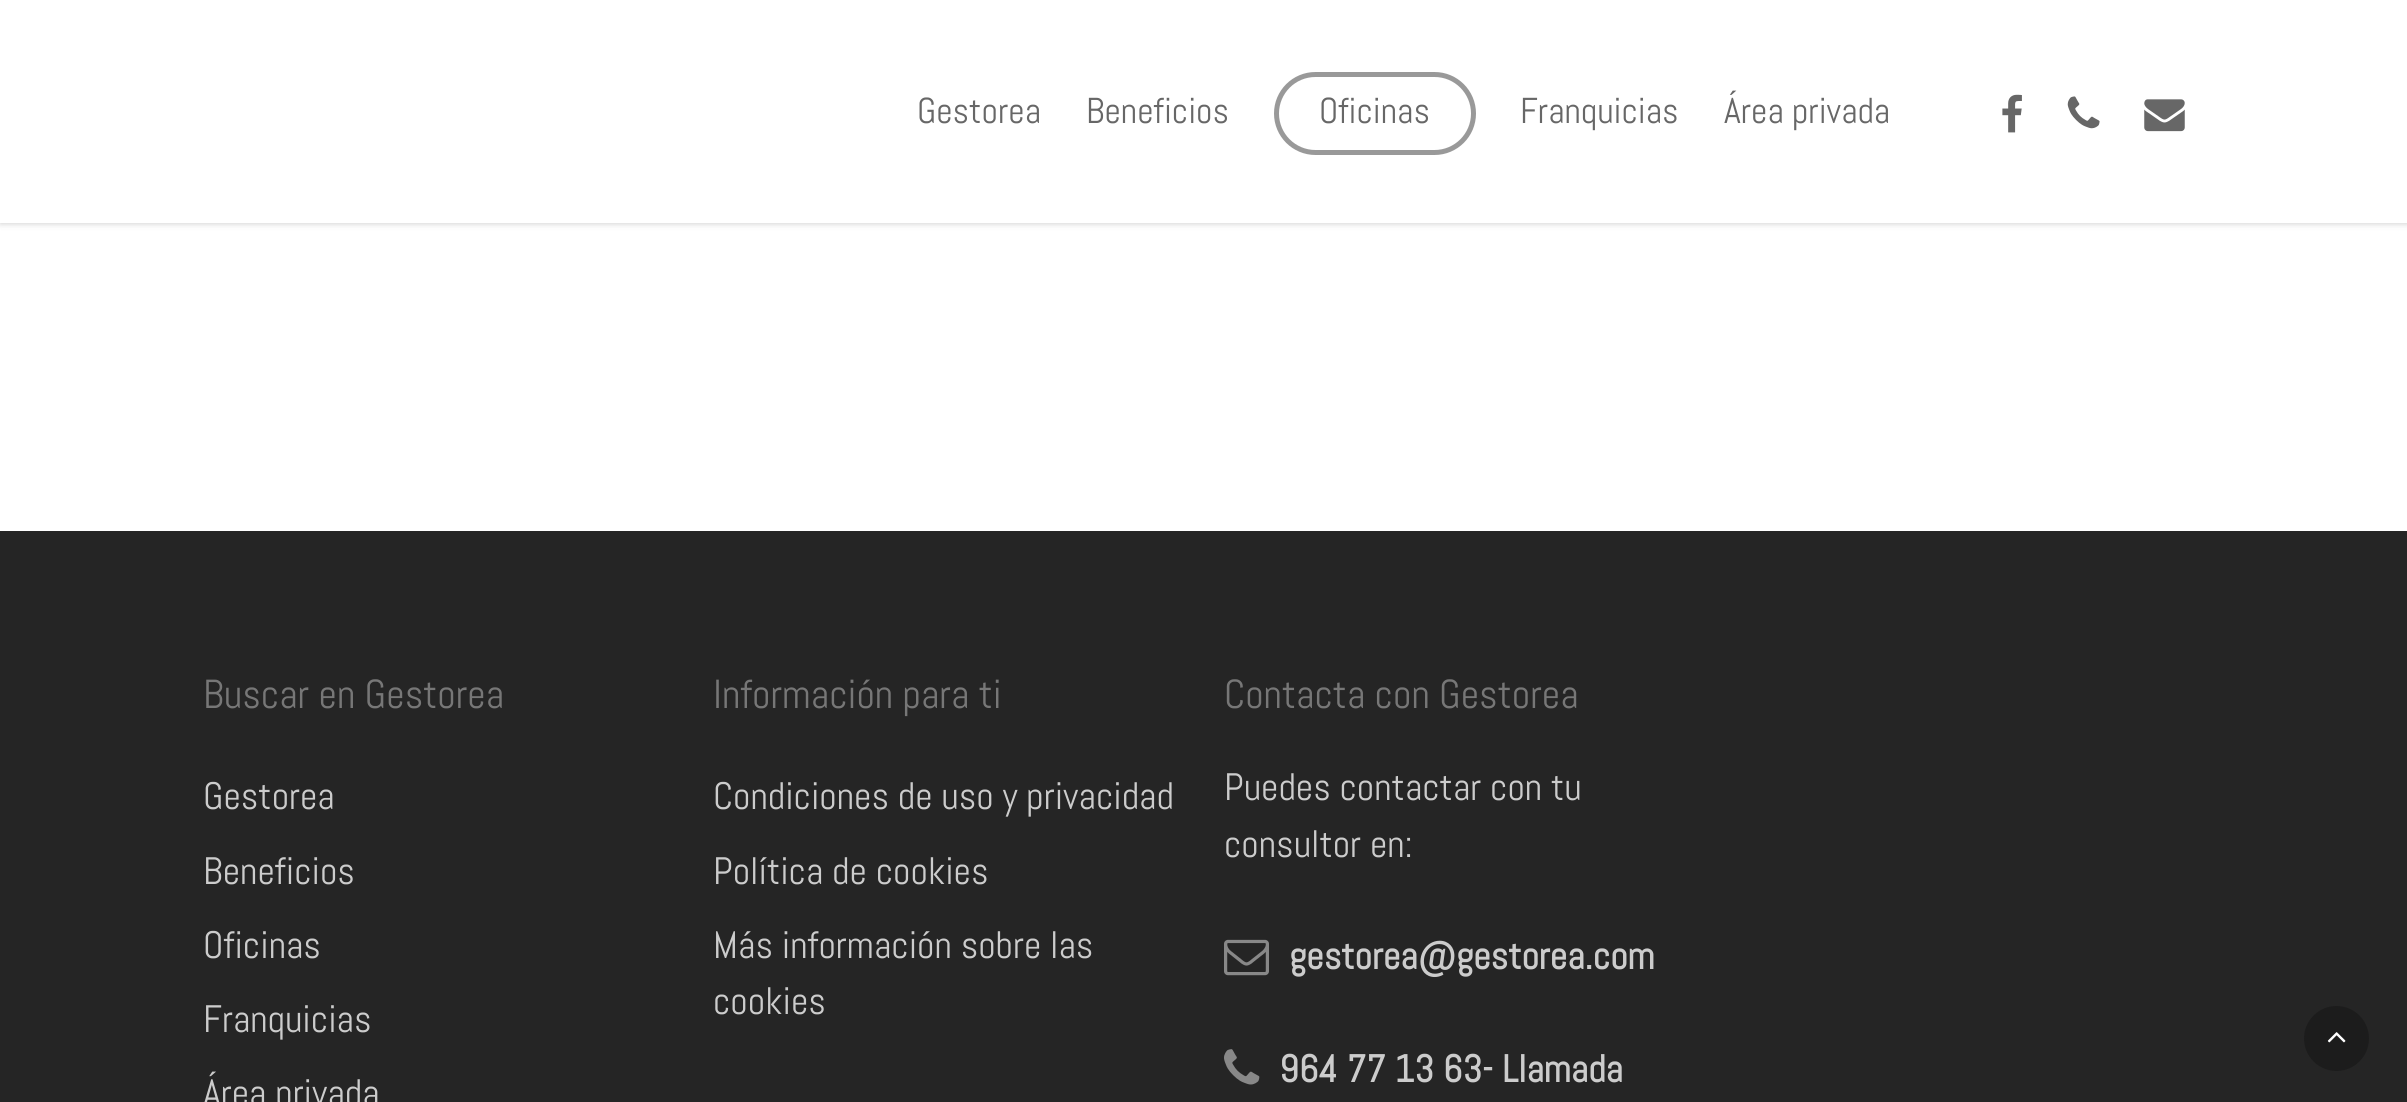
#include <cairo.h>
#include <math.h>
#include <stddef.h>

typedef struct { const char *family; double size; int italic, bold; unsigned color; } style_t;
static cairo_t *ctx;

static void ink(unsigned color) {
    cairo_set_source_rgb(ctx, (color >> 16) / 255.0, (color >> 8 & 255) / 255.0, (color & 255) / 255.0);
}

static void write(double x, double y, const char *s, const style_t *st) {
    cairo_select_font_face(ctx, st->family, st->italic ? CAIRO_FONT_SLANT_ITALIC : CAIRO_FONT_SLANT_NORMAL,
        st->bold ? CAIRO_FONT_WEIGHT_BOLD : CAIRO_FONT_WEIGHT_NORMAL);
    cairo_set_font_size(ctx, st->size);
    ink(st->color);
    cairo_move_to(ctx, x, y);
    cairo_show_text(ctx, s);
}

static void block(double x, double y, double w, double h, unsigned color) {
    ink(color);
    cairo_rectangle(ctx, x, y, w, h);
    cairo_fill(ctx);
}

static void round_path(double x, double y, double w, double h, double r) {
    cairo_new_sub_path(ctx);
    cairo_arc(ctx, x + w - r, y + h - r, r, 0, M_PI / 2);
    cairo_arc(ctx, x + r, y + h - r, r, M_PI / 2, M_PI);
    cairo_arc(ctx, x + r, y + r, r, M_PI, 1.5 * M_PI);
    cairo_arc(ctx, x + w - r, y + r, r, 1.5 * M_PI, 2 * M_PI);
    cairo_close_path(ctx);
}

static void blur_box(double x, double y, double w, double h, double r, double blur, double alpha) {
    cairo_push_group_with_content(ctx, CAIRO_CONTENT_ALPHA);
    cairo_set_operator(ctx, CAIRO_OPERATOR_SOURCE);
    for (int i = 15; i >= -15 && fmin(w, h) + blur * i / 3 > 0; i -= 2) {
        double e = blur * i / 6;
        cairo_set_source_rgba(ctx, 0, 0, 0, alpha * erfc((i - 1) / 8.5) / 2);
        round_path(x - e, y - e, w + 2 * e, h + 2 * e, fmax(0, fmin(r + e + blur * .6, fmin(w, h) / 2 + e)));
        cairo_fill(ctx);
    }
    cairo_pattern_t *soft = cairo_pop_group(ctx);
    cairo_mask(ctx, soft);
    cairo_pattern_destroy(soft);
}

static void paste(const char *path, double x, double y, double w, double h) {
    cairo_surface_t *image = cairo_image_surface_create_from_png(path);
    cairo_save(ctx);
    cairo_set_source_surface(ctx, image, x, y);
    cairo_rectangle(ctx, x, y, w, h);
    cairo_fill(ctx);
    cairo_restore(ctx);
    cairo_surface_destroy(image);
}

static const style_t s1 = {"Abel", 36, 0, 0, 0x676767};
static const style_t s2 = {"Abel", 40.5, 0, 0, 0x777777};
static const style_t s3 = {"Abel", 38.25, 0, 0, 0xcccccc};
static const style_t s4 = {"Abel", 38.25, 0, 1, 0xcccccc};

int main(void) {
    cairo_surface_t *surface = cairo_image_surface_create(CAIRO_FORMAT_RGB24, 2407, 1102);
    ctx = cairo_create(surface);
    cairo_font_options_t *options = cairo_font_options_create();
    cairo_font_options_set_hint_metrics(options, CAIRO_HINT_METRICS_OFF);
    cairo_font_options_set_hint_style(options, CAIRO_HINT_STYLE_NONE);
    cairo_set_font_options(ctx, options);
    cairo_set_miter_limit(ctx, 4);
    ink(0xffffff);
    cairo_paint(ctx);
    ink(0x000000);
    blur_box(0, 0, 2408, 223, 0, 3.5, 0.22);
    block(0, 0, 2407, 223, 0xffffff);
    write(917, 123, "Gestorea", &s1);
    write(1086, 123, "Beneficios", &s1);
    round_path(1276.5, 74.5, 197, 78, 39);
    ink(0x999999);
    cairo_set_line_width(ctx, 5);
    cairo_stroke(ctx);
    write(1319, 123, "Oficinas", &s1);
    write(1520, 123, "Franquicias", &s1);
    write(1724, 123, "Área privada", &s1);
    paste("pic1.png", 2002, 94, 20, 39);
    paste("pic2.png", 2067, 96, 33, 33);
    paste("pic3.png", 2144, 99, 41, 33);
    block(0, 531, 2407, 571, 0x252525);
    write(203, 708, "Buscar en Gestorea", &s2);
    write(203, 809, "Gestorea", &s3);
    write(203, 884, "Beneficios", &s3);
    write(203, 958, "Oficinas", &s3);
    write(203, 1032, "Franquicias", &s3);
    write(203, 1106, "Área privada", &s3);
    write(713, 708, "Información para ti", &s2);
    write(713, 809, "Condiciones de uso y privacidad", &s3);
    write(713, 884, "Política de cookies", &s3);
    write(713, 958, "Más información sobre las", &s3);
    write(713, 1014, "cookies", &s3);
    write(1224, 708, "Contacta con Gestorea", &s2);
    write(1224, 800, "Puedes contactar con tu", &s3);
    write(1224, 857, "consultor en:", &s3);
    paste("pic4.png", 1224, 939, 45, 37);
    write(1289, 969, "gestorea@gestorea.com", &s4);
    paste("pic5.png", 1224, 1049, 36, 36);
    write(1279, 1082, "964 77 13 63- Llamada", &s4);
    ink(0x1c1c1c);
    cairo_new_path(ctx);
    cairo_arc(ctx, 2336.5, 1038.5, 32.5, 0, 2 * M_PI);
    cairo_fill(ctx);
    paste("pic6.png", 2327, 1032, 19, 11);
    cairo_surface_write_to_png(surface, "screenshot.png");
    cairo_font_options_destroy(options);
    cairo_destroy(ctx);
    cairo_surface_destroy(surface);
    return 0;
}
